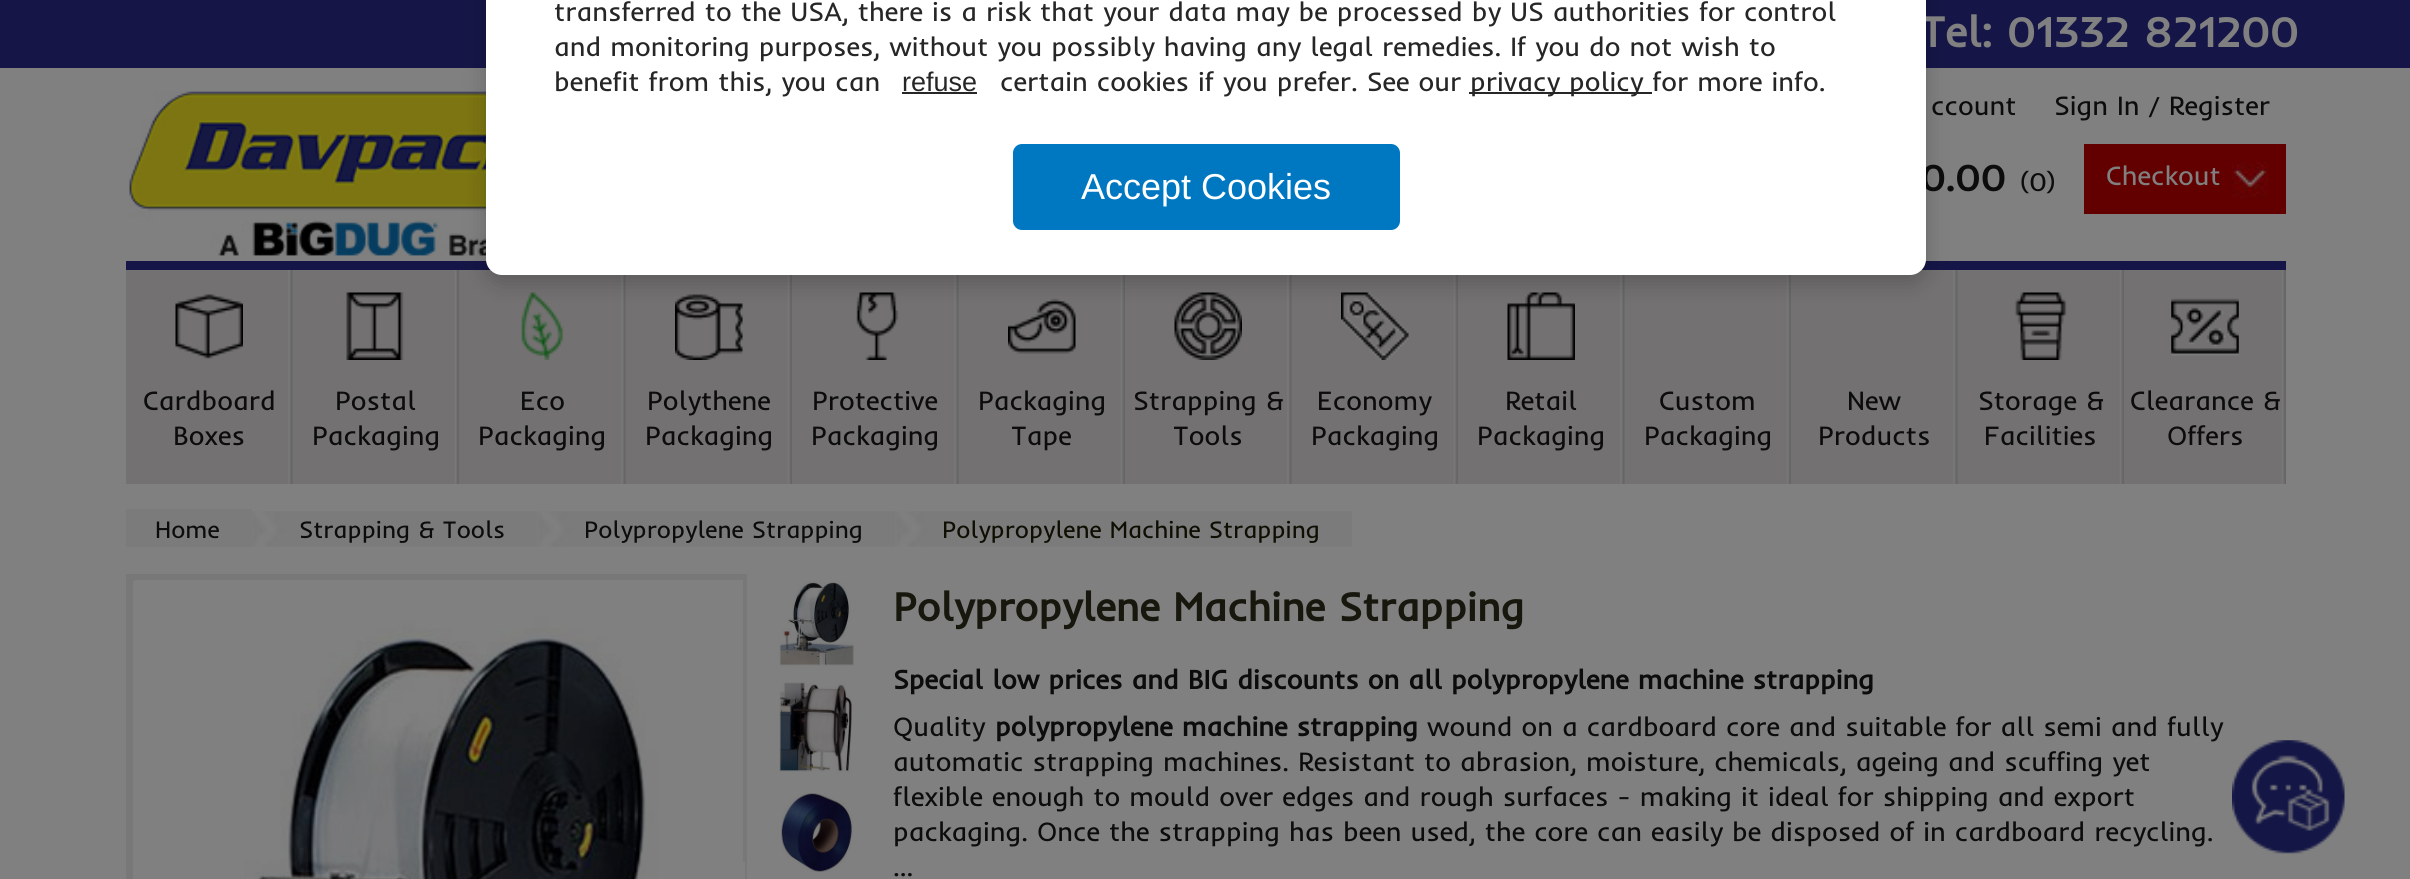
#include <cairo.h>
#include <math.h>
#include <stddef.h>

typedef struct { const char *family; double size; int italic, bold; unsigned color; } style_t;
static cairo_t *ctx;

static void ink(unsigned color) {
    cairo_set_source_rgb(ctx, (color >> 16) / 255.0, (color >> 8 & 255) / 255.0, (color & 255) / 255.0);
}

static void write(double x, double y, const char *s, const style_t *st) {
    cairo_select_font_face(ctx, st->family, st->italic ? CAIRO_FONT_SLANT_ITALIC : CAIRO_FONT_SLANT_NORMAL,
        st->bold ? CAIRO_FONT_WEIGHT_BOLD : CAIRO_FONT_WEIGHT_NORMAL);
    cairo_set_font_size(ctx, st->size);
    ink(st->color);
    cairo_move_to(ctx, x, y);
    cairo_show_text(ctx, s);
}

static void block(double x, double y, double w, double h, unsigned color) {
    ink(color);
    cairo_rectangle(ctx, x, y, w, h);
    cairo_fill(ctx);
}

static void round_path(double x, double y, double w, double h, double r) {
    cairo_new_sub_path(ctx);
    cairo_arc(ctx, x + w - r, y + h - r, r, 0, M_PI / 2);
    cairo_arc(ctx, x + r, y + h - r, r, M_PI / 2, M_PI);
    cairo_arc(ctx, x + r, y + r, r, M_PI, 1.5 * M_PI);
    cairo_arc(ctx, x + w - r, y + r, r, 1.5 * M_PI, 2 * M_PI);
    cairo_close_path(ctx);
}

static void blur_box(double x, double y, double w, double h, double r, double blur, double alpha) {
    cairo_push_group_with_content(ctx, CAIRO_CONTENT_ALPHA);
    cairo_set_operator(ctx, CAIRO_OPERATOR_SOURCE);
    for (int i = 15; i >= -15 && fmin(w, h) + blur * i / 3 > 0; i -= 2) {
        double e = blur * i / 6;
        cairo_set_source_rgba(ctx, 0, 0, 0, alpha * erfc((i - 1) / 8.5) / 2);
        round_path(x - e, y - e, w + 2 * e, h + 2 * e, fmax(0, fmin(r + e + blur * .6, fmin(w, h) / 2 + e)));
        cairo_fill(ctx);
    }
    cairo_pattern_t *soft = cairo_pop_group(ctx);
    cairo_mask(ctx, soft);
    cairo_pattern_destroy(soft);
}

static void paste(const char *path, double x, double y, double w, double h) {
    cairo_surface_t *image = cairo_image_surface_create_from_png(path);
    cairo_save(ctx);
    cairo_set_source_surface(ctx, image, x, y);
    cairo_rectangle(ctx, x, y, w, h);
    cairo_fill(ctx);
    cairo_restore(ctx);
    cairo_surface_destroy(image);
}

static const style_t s1 = {"Inder", 43.25, 0, 1, 0x808080};
static const style_t s2 = {"Inder", 38, 0, 1, 0x0c0c0c};
static const style_t s3 = {"Inder", 27, 0, 0, 0x262626};
static const style_t s4 = {"Liberation Sans", 27, 0, 0, 0x262626};
static const style_t s5 = {"Liberation Sans", 36, 0, 0, 0xffffff};
static const style_t s6 = {"Inder", 27, 0, 0, 0x0c0c0c};
static const style_t s7 = {"Inder", 27, 0, 0, 0x808080};
static const style_t s8 = {"Inder", 24.25, 0, 0, 0x0c0c0c};
static const style_t s9 = {"Inder", 24.25, 0, 0, 0x0e0e03};
static const style_t s10 = {"Inder", 40.5, 0, 1, 0x17170d};
static const style_t s11 = {"Inder", 27, 0, 1, 0x0c0c0c};

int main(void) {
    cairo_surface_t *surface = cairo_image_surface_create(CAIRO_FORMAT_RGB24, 2410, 879);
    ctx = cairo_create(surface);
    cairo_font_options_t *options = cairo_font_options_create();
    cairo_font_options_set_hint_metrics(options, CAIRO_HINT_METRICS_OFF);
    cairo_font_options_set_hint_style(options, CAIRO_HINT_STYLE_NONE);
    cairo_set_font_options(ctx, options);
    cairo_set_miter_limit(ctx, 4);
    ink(0x808080);
    cairo_paint(ctx);
    block(0, 0, 2410, 68, 0x151647);
    paste("pic1.png", 129, 91, 357, 165);
    block(126, 270, 2160, 214, 0x737171);
    block(126, 261, 2160, 9, 0x151647);
    paste("pic4.png", 346, 270, 113, 214);
    paste("pic5.png", 521, 275, 105, 209);
    paste("pic6.png", 675, 275, 117, 209);
    paste("pic7.png", 856, 275, 103, 209);
    paste("pic8.png", 1008, 275, 117, 209);
    paste("pic9.png", 1174, 275, 118, 209);
    paste("pic10.png", 1341, 275, 117, 209);
    paste("pic11.png", 1507, 275, 118, 209);
    paste("pic12.png", 1786, 275, 5, 209);
    paste("pic13.png", 1953, 270, 5, 214);
    ink(0x000000);
    blur_box(486, -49, 1440, 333, 16, 11, 0.2);
    write(1920, 47, "Tel: 01332 821200", &s1);
    write(1920, 191, "0.00", &s2);
    ink(0xffffff);
    round_path(486, -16, 1440, 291, 16);
    cairo_fill(ctx);
    write(554, 21, "transferred to the USA, there is a risk that your data may be processed by US authorities for control", &s3);
    write(554, 56, "and monitoring purposes, without you possibly having any legal remedies. If you do not wish to", &s3);
    write(554, 91, "benefit from this, you can", &s3);
    write(902, 91, "refuse", &s4);
    block(902, 92, 75, 2, 0x262626);
    write(1000, 91, "certain cookies if you prefer. See our", &s3);
    block(1469, 92, 183, 2, 0x262626);
    write(1470, 91, "privacy policy for more info.", &s3);
    ink(0x0077c1);
    round_path(1013, 144, 387, 86, 9);
    cairo_fill(ctx);
    write(1081, 199, "Accept Cookies", &s5);
    write(1931, 115, "ccount", &s6);
    write(2054, 115, "Sign In / Register", &s6);
    write(2020, 191, "(0)", &s6);
    block(2084, 144, 202, 70, 0x620000);
    paste("pic2.png", 2231, 161, 38, 38);
    write(2106, 185, "Checkout", &s7);
    paste("pic3.png", 175, 270, 118, 214);
    write(143, 410, "Cardboard", &s6);
    write(173, 445, "Boxes", &s6);
    write(335, 410, "Postal", &s6);
    write(312, 445, "Packaging", &s6);
    write(520, 410, "Eco", &s6);
    write(478, 445, "Packaging", &s6);
    write(647, 410, "Polythene", &s6);
    write(645, 445, "Packaging", &s6);
    write(812, 410, "Protective", &s6);
    write(811, 445, "Packaging", &s6);
    write(978, 410, "Packaging", &s6);
    write(1011, 445, "Tape", &s6);
    write(1133, 410, "Strapping &", &s6);
    write(1173, 445, "Tools", &s6);
    write(1317, 410, "Economy", &s6);
    write(1311, 445, "Packaging", &s6);
    write(1505, 410, "Retail", &s6);
    write(1477, 445, "Packaging", &s6);
    write(1659, 410, "Custom", &s6);
    write(1644, 445, "Packaging", &s6);
    write(1847, 410, "New", &s6);
    write(1818, 445, "Products", &s6);
    paste("pic14.png", 2015, 270, 109, 214);
    write(1978, 410, "Storage &", &s6);
    write(1984, 445, "Facilities", &s6);
    paste("pic15.png", 2171, 270, 115, 214);
    write(2130, 410, "Clearance &", &s6);
    write(2167, 445, "Offers", &s6);
    block(126, 509, 126, 38, 0x7b7b7b);
    write(155, 538, "Home", &s8);
    paste("pic16.png", 252, 511, 286, 36);
    write(299, 538, "Strapping & Tools", &s8);
    paste("pic17.png", 538, 511, 358, 36);
    write(584, 538, "Polypropylene Strapping", &s8);
    paste("pic18.png", 896, 511, 456, 36);
    write(942, 538, "Polypropylene Machine Strapping", &s9);
    cairo_rectangle(ctx, 129.5, 577.5, 614, 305);
    ink(0x787878);
    cairo_set_line_width(ctx, 7);
    cairo_stroke(ctx);
    cairo_rectangle(ctx, 134, 863, 610, 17);
    ink(0x808080);
    cairo_set_line_width(ctx, 2);
    cairo_stroke(ctx);
    paste("pic19.png", 135, 580, 608, 299);
    paste("pic20.png", 779, 581, 75, 85);
    paste("pic21.png", 779, 682, 73, 90);
    paste("pic22.png", 781, 793, 72, 79);
    write(893, 621, "Polypropylene Machine Strapping", &s10);
    write(893, 689, "Special low prices and BIG discounts on all polypropylene machine strapping", &s11);
    write(893, 736, "Quality", &s6);
    write(995, 736, "polypropylene machine strapping", &s11);
    write(1427, 736, "wound on a cardboard core and suitable for all semi and fully", &s6);
    write(893, 771, "automatic strapping machines. Resistant to abrasion, moisture, chemicals, ageing and scuffing yet", &s6);
    write(893, 806, "flexible enough to mould over edges and rough surfaces - making it ideal for shipping and export", &s6);
    write(893, 841, "packaging. Once the strapping has been used, the core can easily be disposed of in cardboard recycling.", &s6);
    write(893, 876, "...", &s6);
    paste("pic23.png", 2232, 740, 113, 114);
    cairo_surface_write_to_png(surface, "screenshot.png");
    cairo_font_options_destroy(options);
    cairo_destroy(ctx);
    cairo_surface_destroy(surface);
    return 0;
}
